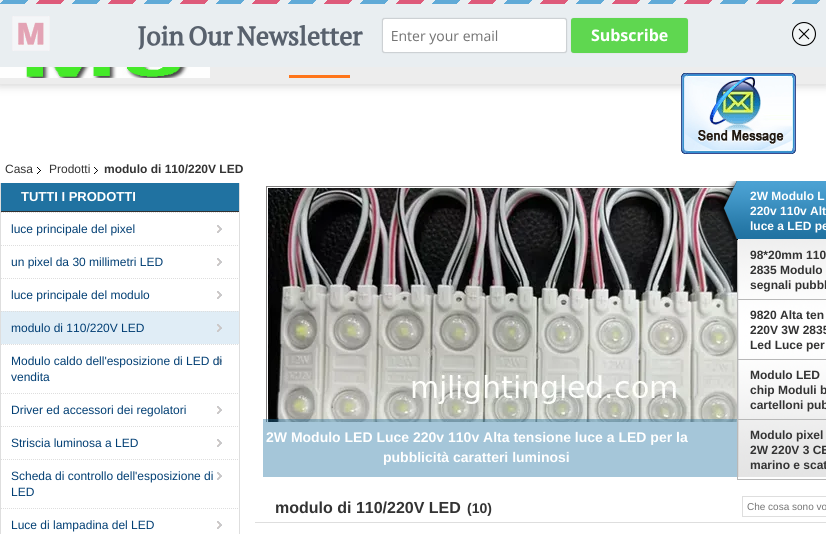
#include <cairo.h>
#include <math.h>
#include <stddef.h>

typedef struct { const char *family; double size; int italic, bold; unsigned color; } style_t;
static cairo_t *ctx;

static void ink(unsigned color) {
    cairo_set_source_rgb(ctx, (color >> 16) / 255.0, (color >> 8 & 255) / 255.0, (color & 255) / 255.0);
}

static void write(double x, double y, const char *s, const style_t *st) {
    cairo_select_font_face(ctx, st->family, st->italic ? CAIRO_FONT_SLANT_ITALIC : CAIRO_FONT_SLANT_NORMAL,
        st->bold ? CAIRO_FONT_WEIGHT_BOLD : CAIRO_FONT_WEIGHT_NORMAL);
    cairo_set_font_size(ctx, st->size);
    ink(st->color);
    cairo_move_to(ctx, x, y);
    cairo_show_text(ctx, s);
}

static void block(double x, double y, double w, double h, unsigned color) {
    ink(color);
    cairo_rectangle(ctx, x, y, w, h);
    cairo_fill(ctx);
}

static void round_path(double x, double y, double w, double h, double r) {
    cairo_new_sub_path(ctx);
    cairo_arc(ctx, x + w - r, y + h - r, r, 0, M_PI / 2);
    cairo_arc(ctx, x + r, y + h - r, r, M_PI / 2, M_PI);
    cairo_arc(ctx, x + r, y + r, r, M_PI, 1.5 * M_PI);
    cairo_arc(ctx, x + w - r, y + r, r, 1.5 * M_PI, 2 * M_PI);
    cairo_close_path(ctx);
}

static void blur_box(double x, double y, double w, double h, double r, double blur, double alpha) {
    cairo_push_group_with_content(ctx, CAIRO_CONTENT_ALPHA);
    cairo_set_operator(ctx, CAIRO_OPERATOR_SOURCE);
    for (int i = 15; i >= -15 && fmin(w, h) + blur * i / 3 > 0; i -= 2) {
        double e = blur * i / 6;
        cairo_set_source_rgba(ctx, 0, 0, 0, alpha * erfc((i - 1) / 8.5) / 2);
        round_path(x - e, y - e, w + 2 * e, h + 2 * e, fmax(0, fmin(r + e + blur * .6, fmin(w, h) / 2 + e)));
        cairo_fill(ctx);
    }
    cairo_pattern_t *soft = cairo_pop_group(ctx);
    cairo_mask(ctx, soft);
    cairo_pattern_destroy(soft);
}

static void paste(const char *path, double x, double y, double w, double h) {
    cairo_surface_t *image = cairo_image_surface_create_from_png(path);
    cairo_save(ctx);
    cairo_set_source_surface(ctx, image, x, y);
    cairo_rectangle(ctx, x, y, w, h);
    cairo_fill(ctx);
    cairo_restore(ctx);
    cairo_surface_destroy(image);
}

static const style_t s1 = {"Liberation Sans", 12, 0, 0, 0x333333};
static const style_t s2 = {"Liberation Sans", 12, 0, 1, 0x333333};
static const style_t s3 = {"Liberation Sans", 13, 0, 1, 0xffffff};
static const style_t s4 = {"Liberation Sans", 12, 0, 0, 0x023f74};
static const style_t s5 = {"Liberation Sans", 14, 0, 1, 0xffffff};
static const style_t s6 = {"Liberation Sans", 12, 0, 1, 0xffffff};
static const style_t s7 = {"Liberation Sans", 16, 0, 1, 0x333333};
static const style_t s8 = {"Liberation Sans", 14, 0, 1, 0x333333};
static const style_t s9 = {"Liberation Sans", 10, 0, 0, 0x757575};

int main(void) {
    cairo_surface_t *surface = cairo_image_surface_create(CAIRO_FORMAT_RGB24, 826, 534);
    ctx = cairo_create(surface);
    cairo_font_options_t *options = cairo_font_options_create();
    cairo_font_options_set_hint_metrics(options, CAIRO_HINT_METRICS_OFF);
    cairo_font_options_set_hint_style(options, CAIRO_HINT_STYLE_NONE);
    cairo_set_font_options(ctx, options);
    cairo_set_miter_limit(ctx, 4);
    ink(0xffffff);
    cairo_paint(ctx);
    ink(0x000000);
    blur_box(-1, -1, 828, 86, 0, 5, 0.2);
    block(0, 67, 826, 17, 0xededed);
    paste("pic1.png", 0, 67, 210, 11);
    block(289, 75, 61, 3, 0xff7519);
    paste("pic2.png", 0, 0, 826, 67);
    paste("pic3.png", 681, 73, 115, 81);
    paste("pic4.png", 37, 167, 4, 7);
    write(5, 173, "Casa", &s1);
    paste("pic5.png", 94, 167, 4, 7);
    write(49, 173, "Prodotti", &s1);
    write(104, 173, "modulo di 110/220V LED", &s2);
    block(239, 183, 1, 351, 0xdedede);
    block(0, 183, 1, 351, 0xdedede);
    block(1, 183, 238, 28, 0x2072a1);
    block(1, 211, 238, 1, 0x313131);
    write(21, 201, "TUTTI I PRODOTTI", &s3);
    paste("pic6.png", 217, 225, 5, 8);
    cairo_new_path(ctx);
    cairo_move_to(ctx, 1, 212.5);
    cairo_line_to(ctx, 241, 212.5);
    ink(0xdedede);
    cairo_set_line_width(ctx, 1);
    cairo_set_dash(ctx, (double[]){1, 1}, 2, 0);
    cairo_stroke(ctx);
    write(11, 233, "luce principale del pixel", &s4);
    paste("pic6.png", 217, 258, 5, 8);
    cairo_new_path(ctx);
    cairo_move_to(ctx, 1, 245.5);
    cairo_line_to(ctx, 241, 245.5);
    ink(0xdedede);
    cairo_stroke(ctx);
    write(11, 266, "un pixel da 30 millimetri LED", &s4);
    paste("pic6.png", 217, 291, 5, 8);
    cairo_new_path(ctx);
    cairo_move_to(ctx, 1, 278.5);
    cairo_line_to(ctx, 241, 278.5);
    ink(0xdedede);
    cairo_stroke(ctx);
    write(11, 299, "luce principale del modulo", &s4);
    block(1, 311, 238, 33, 0xe0edf6);
    paste("pic7.png", 217, 324, 5, 8);
    cairo_new_path(ctx);
    cairo_move_to(ctx, 1, 311.5);
    cairo_line_to(ctx, 241, 311.5);
    ink(0xdedede);
    cairo_stroke(ctx);
    write(11, 332, "modulo di 110/220V LED", &s4);
    paste("pic6.png", 217, 357, 5, 8);
    cairo_new_path(ctx);
    cairo_move_to(ctx, 1, 344.5);
    cairo_line_to(ctx, 241, 344.5);
    ink(0xdedede);
    cairo_stroke(ctx);
    write(11, 365, "Modulo caldo dell'esposizione di LED di", &s4);
    write(11, 381, "vendita", &s4);
    paste("pic6.png", 217, 406, 5, 8);
    cairo_new_path(ctx);
    cairo_move_to(ctx, 1, 393.5);
    cairo_line_to(ctx, 241, 393.5);
    ink(0xdedede);
    cairo_stroke(ctx);
    write(11, 414, "Driver ed accessori dei regolatori", &s4);
    paste("pic6.png", 217, 439, 5, 8);
    cairo_new_path(ctx);
    cairo_move_to(ctx, 1, 426.5);
    cairo_line_to(ctx, 241, 426.5);
    ink(0xdedede);
    cairo_stroke(ctx);
    write(11, 447, "Striscia luminosa a LED", &s4);
    paste("pic6.png", 217, 472, 5, 8);
    cairo_new_path(ctx);
    cairo_move_to(ctx, 1, 459.5);
    cairo_line_to(ctx, 241, 459.5);
    ink(0xdedede);
    cairo_stroke(ctx);
    write(11, 480, "Scheda di controllo dell'esposizione di", &s4);
    write(11, 496, "LED", &s4);
    paste("pic6.png", 217, 521, 5, 8);
    cairo_new_path(ctx);
    cairo_move_to(ctx, 1, 508.5);
    cairo_line_to(ctx, 241, 508.5);
    ink(0xdedede);
    cairo_stroke(ctx);
    write(11, 529, "Luce di lampadina del LED", &s4);
    block(255, 522, 571, 1, 0xdedede);
    cairo_save(ctx);
    cairo_rectangle(ctx, 263, 183, 562, 239);
    cairo_clip(ctx);
    cairo_rectangle(ctx, 266.5, 186.5, 555, 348);
    ink(0x848282);
    cairo_set_dash(ctx, NULL, 0, 0);
    cairo_stroke(ctx);
    cairo_restore(ctx);
    paste("pic8.png", 268, 188, 470, 234);
    cairo_set_source_rgba(ctx, 0.125, 0.447, 0.631, 0.4);
    cairo_rectangle(ctx, 263, 419, 474, 58);
    cairo_fill(ctx);
    write(266, 442, "2W Modulo LED Luce 220v 110v Alta tensione luce a LED per la", &s5);
    write(383, 462, "pubblicità caratteri luminosi", &s5);
    paste("pic9.png", 738, 239, 88, 238);
    paste("pic10.png", 720, 181, 106, 58);
    write(750, 200, "2W Modulo L", &s6);
    write(750, 215, "220v 110v Alt", &s6);
    write(750, 230, "luce a LED pe", &s6);
    block(737, 299, 89, 1, 0xb8b8b8);
    block(737, 240, 1, 60, 0xb8b8b8);
    write(750, 259, "98*20mm 110", &s2);
    write(750, 274, "2835 Modulo", &s2);
    write(750, 289, "segnali pubbl", &s2);
    block(737, 359, 89, 1, 0xb8b8b8);
    block(737, 300, 1, 60, 0xb8b8b8);
    write(750, 319, "9820 Alta ten", &s2);
    write(750, 334, "220V 3W 2835", &s2);
    write(750, 349, "Led Luce per", &s2);
    block(737, 419, 89, 1, 0xb8b8b8);
    block(737, 360, 1, 60, 0xb8b8b8);
    write(750, 379, "Modulo LED", &s2);
    write(750, 394, "chip Moduli b", &s2);
    write(750, 409, "cartelloni pub", &s2);
    block(737, 479, 89, 1, 0xb8b8b8);
    block(737, 420, 1, 60, 0xb8b8b8);
    write(750, 439, "Modulo pixel", &s2);
    write(750, 454, "2W 220V 3 CE", &s2);
    write(750, 469, "marino e scat", &s2);
    write(275, 513, "modulo di 110/220V LED", &s7);
    write(467, 513, "(10)", &s8);
    cairo_rectangle(ctx, 742.5, 496.5, 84, 20);
    ink(0xdedede);
    cairo_set_dash(ctx, NULL, 0, 0);
    cairo_stroke(ctx);
    write(747, 510, "Che cosa sono vo", &s9);
    cairo_surface_write_to_png(surface, "screenshot.png");
    cairo_font_options_destroy(options);
    cairo_destroy(ctx);
    cairo_surface_destroy(surface);
    return 0;
}
